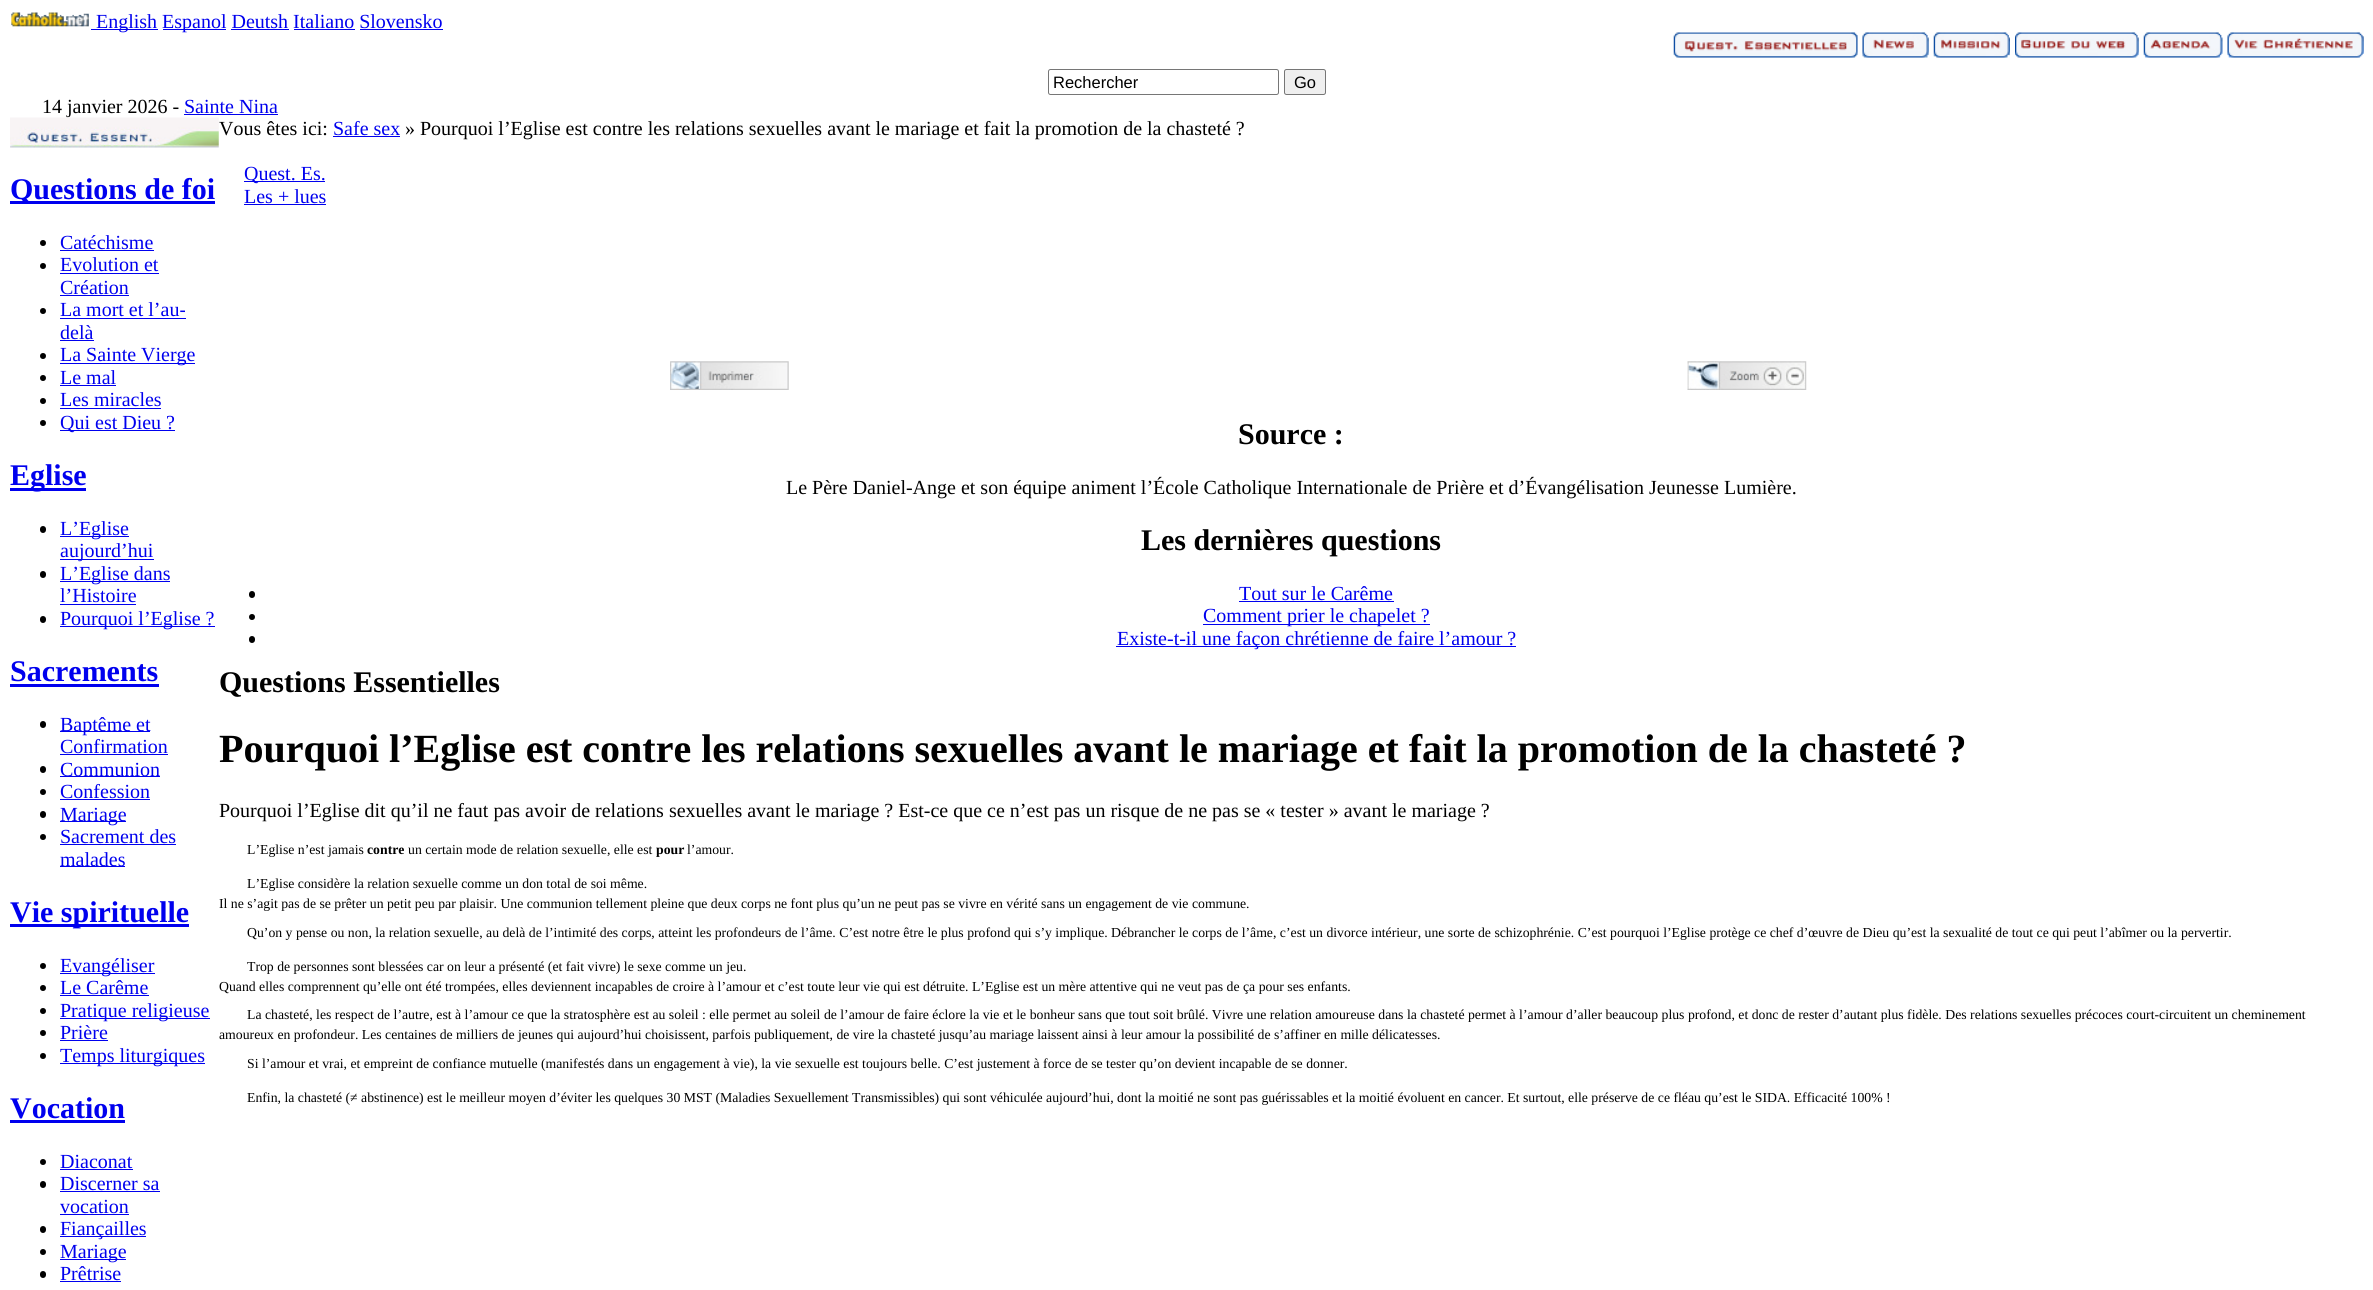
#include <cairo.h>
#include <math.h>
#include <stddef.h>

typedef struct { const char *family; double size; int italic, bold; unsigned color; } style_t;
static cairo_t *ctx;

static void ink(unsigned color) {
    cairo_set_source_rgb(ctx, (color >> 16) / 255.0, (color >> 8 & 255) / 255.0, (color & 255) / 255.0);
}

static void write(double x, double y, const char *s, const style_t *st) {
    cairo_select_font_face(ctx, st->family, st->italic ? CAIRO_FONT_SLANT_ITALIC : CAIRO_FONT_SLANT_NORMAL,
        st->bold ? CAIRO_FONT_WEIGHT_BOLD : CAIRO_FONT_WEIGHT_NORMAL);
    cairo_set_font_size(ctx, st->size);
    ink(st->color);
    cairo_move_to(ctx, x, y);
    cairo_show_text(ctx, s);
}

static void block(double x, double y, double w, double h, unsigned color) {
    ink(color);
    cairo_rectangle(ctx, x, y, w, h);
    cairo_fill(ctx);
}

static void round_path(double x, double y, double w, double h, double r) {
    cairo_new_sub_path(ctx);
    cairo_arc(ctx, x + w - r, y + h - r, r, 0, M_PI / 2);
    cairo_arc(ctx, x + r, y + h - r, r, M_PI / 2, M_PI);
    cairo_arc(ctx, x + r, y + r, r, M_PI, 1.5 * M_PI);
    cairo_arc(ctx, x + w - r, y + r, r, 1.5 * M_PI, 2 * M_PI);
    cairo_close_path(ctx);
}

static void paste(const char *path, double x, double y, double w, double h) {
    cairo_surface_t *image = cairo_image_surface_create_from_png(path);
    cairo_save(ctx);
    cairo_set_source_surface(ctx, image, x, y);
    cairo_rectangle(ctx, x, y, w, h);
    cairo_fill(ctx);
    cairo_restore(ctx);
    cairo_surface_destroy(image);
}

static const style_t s1 = {"Liberation Serif", 20, 0, 0, 0x0000ee};
static const style_t s2 = {"Liberation Sans", 16.5, 0, 0, 0x000000};
static const style_t s3 = {"Liberation Serif", 20, 0, 0, 0x000000};
static const style_t s4 = {"Liberation Serif", 30, 0, 1, 0x0000ee};
static const style_t s5 = {"Liberation Serif", 30, 0, 1, 0x000000};
static const style_t s6 = {"Liberation Serif", 40, 0, 1, 0x000000};
static const style_t s7 = {"Liberation Serif", 13.75, 0, 0, 0x000000};
static const style_t s8 = {"Liberation Serif", 13.75, 0, 1, 0x000000};

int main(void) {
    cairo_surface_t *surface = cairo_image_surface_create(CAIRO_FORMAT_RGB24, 2373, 1290);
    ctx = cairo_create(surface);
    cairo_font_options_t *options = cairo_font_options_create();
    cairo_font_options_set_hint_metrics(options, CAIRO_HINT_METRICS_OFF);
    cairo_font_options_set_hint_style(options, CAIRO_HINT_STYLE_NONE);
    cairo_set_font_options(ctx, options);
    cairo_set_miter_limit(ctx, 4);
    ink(0xffffff);
    cairo_paint(ctx);
    paste("pic1.png", 11, 12, 78, 15);
    block(91, 29, 67, 1, 0x0000ee);
    write(96, 28, "English", &s1);
    block(163, 29, 63, 1, 0x0000ee);
    write(162, 28, "Espanol Deutsh Italiano Slovensko", &s1);
    block(231, 29, 58, 1, 0x0000ee);
    block(294, 29, 61, 1, 0x0000ee);
    block(360, 29, 83, 1, 0x0000ee);
    paste("pic2.png", 1673, 32, 185, 26);
    paste("pic3.png", 1862, 32, 67, 26);
    paste("pic4.png", 1933, 32, 77, 26);
    paste("pic5.png", 2015, 32, 124, 26);
    paste("pic6.png", 2143, 32, 80, 26);
    paste("pic7.png", 2227, 32, 137, 26);
    round_path(1048.5, 69.5, 230, 25, 2);
    ink(0x767676);
    cairo_set_line_width(ctx, 1);
    cairo_stroke(ctx);
    write(1053, 88, "Rechercher", &s2);
    ink(0xefefef);
    round_path(1284.5, 69.5, 41, 25, 2);
    cairo_fill_preserve(ctx);
    ink(0x767676);
    cairo_stroke(ctx);
    write(1294, 88, "Go", &s2);
    write(42, 113, "14 janvier 2026 -", &s3);
    write(184, 113, "Sainte Nina", &s1);
    block(184, 114, 94, 1, 0x0000ee);
    paste("pic8.png", 10, 117, 209, 31);
    block(10, 201, 205, 3, 0x0000ee);
    write(10, 199, "Questions de foi", &s4);
    ink(0x000000);
    cairo_new_path(ctx);
    cairo_arc(ctx, 43, 243, 3, 0, 2 * M_PI);
    cairo_fill(ctx);
    write(60, 249, "Catéchisme", &s1);
    block(60, 250, 94, 1, 0x0000ee);
    ink(0x000000);
    cairo_new_path(ctx);
    cairo_arc(ctx, 43, 266, 3, 0, 2 * M_PI);
    cairo_fill(ctx);
    write(60, 271, "Evolution et", &s1);
    block(60, 273, 99, 1, 0x0000ee);
    write(60, 294, "Création", &s1);
    block(60, 295, 69, 1, 0x0000ee);
    ink(0x000000);
    cairo_new_path(ctx);
    cairo_arc(ctx, 43, 311, 3, 0, 2 * M_PI);
    cairo_fill(ctx);
    write(60, 316, "La mort et l’au-", &s1);
    block(60, 318, 126, 1, 0x0000ee);
    write(60, 339, "delà", &s1);
    block(60, 340, 34, 1, 0x0000ee);
    ink(0x000000);
    cairo_new_path(ctx);
    cairo_arc(ctx, 43, 356, 3, 0, 2 * M_PI);
    cairo_fill(ctx);
    block(60, 363, 135, 1, 0x0000ee);
    write(60, 361, "La Sainte Vierge", &s1);
    ink(0x000000);
    cairo_new_path(ctx);
    cairo_arc(ctx, 43, 378, 3, 0, 2 * M_PI);
    cairo_fill(ctx);
    write(60, 384, "Le mal", &s1);
    block(60, 385, 56, 1, 0x0000ee);
    ink(0x000000);
    cairo_new_path(ctx);
    cairo_arc(ctx, 43, 401, 3, 0, 2 * M_PI);
    cairo_fill(ctx);
    write(60, 406, "Les miracles", &s1);
    block(60, 408, 101, 1, 0x0000ee);
    ink(0x000000);
    cairo_new_path(ctx);
    cairo_arc(ctx, 43, 423, 3, 0, 2 * M_PI);
    cairo_fill(ctx);
    block(60, 430, 115, 1, 0x0000ee);
    write(60, 429, "Qui est Dieu ?", &s1);
    block(10, 488, 76, 3, 0x0000ee);
    write(10, 485, "Eglise", &s4);
    ink(0x000000);
    round_path(40, 526, 6, 7, 3);
    cairo_fill(ctx);
    block(60, 536, 69, 1, 0x0000ee);
    write(60, 535, "L’Eglise", &s1);
    block(60, 559, 94, 1, 0x0000ee);
    write(60, 557, "aujourd’hui", &s1);
    ink(0x000000);
    round_path(40, 571, 6, 7, 3);
    cairo_fill(ctx);
    block(60, 581, 110, 1, 0x0000ee);
    write(60, 580, "L’Eglise dans", &s1);
    write(60, 602, "l’Histoire", &s1);
    block(60, 604, 76, 1, 0x0000ee);
    ink(0x000000);
    round_path(40, 616, 6, 7, 3);
    cairo_fill(ctx);
    block(60, 626, 155, 1, 0x0000ee);
    write(60, 625, "Pourquoi l’Eglise ?", &s1);
    write(10, 681, "Sacrements", &s4);
    block(10, 684, 149, 3, 0x0000ee);
    ink(0x000000);
    round_path(40, 721, 6, 7, 3);
    cairo_fill(ctx);
    block(60, 731, 90, 1, 0x0000ee);
    write(60, 731, "Baptême et", &s1);
    write(60, 753, "Confirmation", &s1);
    block(60, 754, 108, 1, 0x0000ee);
    ink(0x000000);
    round_path(40, 766, 6, 7, 3);
    cairo_fill(ctx);
    block(60, 776, 100, 1, 0x0000ee);
    write(60, 776, "Communion", &s1);
    ink(0x000000);
    cairo_new_path(ctx);
    cairo_arc(ctx, 43, 792, 3, 0, 2 * M_PI);
    cairo_fill(ctx);
    write(60, 798, "Confession", &s1);
    block(60, 799, 90, 1, 0x0000ee);
    ink(0x000000);
    round_path(40, 811, 6, 7, 3);
    cairo_fill(ctx);
    block(60, 821, 66, 1, 0x0000ee);
    write(60, 821, "Mariage", &s1);
    ink(0x000000);
    cairo_new_path(ctx);
    cairo_arc(ctx, 43, 837, 3, 0, 2 * M_PI);
    cairo_fill(ctx);
    write(60, 843, "Sacrement des", &s1);
    block(60, 844, 116, 1, 0x0000ee);
    block(60, 866, 65, 1, 0x0000ee);
    write(60, 866, "malades", &s1);
    block(10, 924, 179, 3, 0x0000ee);
    write(10, 922, "Vie spirituelle", &s4);
    ink(0x000000);
    cairo_new_path(ctx);
    cairo_arc(ctx, 43, 966, 3, 0, 2 * M_PI);
    cairo_fill(ctx);
    block(60, 973, 95, 1, 0x0000ee);
    write(60, 972, "Evangéliser", &s1);
    ink(0x000000);
    cairo_new_path(ctx);
    cairo_arc(ctx, 43, 988, 3, 0, 2 * M_PI);
    cairo_fill(ctx);
    write(60, 994, "Le Carême", &s1);
    block(60, 995, 89, 1, 0x0000ee);
    ink(0x000000);
    cairo_new_path(ctx);
    cairo_arc(ctx, 43, 1011, 3, 0, 2 * M_PI);
    cairo_fill(ctx);
    block(60, 1018, 150, 1, 0x0000ee);
    write(60, 1017, "Pratique religieuse", &s1);
    ink(0x000000);
    cairo_new_path(ctx);
    cairo_arc(ctx, 43, 1033, 3, 0, 2 * M_PI);
    cairo_fill(ctx);
    write(60, 1039, "Prière", &s1);
    block(60, 1040, 48, 1, 0x0000ee);
    ink(0x000000);
    cairo_new_path(ctx);
    cairo_arc(ctx, 43, 1056, 3, 0, 2 * M_PI);
    cairo_fill(ctx);
    block(60, 1063, 145, 1, 0x0000ee);
    write(60, 1062, "Temps liturgiques", &s1);
    write(10, 1118, "Vocation", &s4);
    block(10, 1120, 115, 3, 0x0000ee);
    ink(0x000000);
    cairo_new_path(ctx);
    cairo_arc(ctx, 43, 1162, 3, 0, 2 * M_PI);
    cairo_fill(ctx);
    write(60, 1168, "Diaconat", &s1);
    block(60, 1169, 73, 1, 0x0000ee);
    ink(0x000000);
    round_path(40, 1181, 6, 7, 3);
    cairo_fill(ctx);
    write(60, 1190, "Discerner sa", &s1);
    block(60, 1191, 100, 1, 0x0000ee);
    write(60, 1213, "vocation", &s1);
    block(60, 1214, 69, 1, 0x0000ee);
    ink(0x000000);
    round_path(40, 1226, 6, 7, 3);
    cairo_fill(ctx);
    block(60, 1236, 86, 1, 0x0000ee);
    write(60, 1235, "Fiançailles", &s1);
    ink(0x000000);
    cairo_new_path(ctx);
    cairo_arc(ctx, 43, 1252, 3, 0, 2 * M_PI);
    cairo_fill(ctx);
    block(60, 1259, 66, 1, 0x0000ee);
    write(60, 1258, "Mariage", &s1);
    ink(0x000000);
    round_path(40, 1271, 6, 7, 3);
    cairo_fill(ctx);
    write(60, 1280, "Prêtrise", &s1);
    block(60, 1281, 61, 1, 0x0000ee);
    write(219, 135, "Vous êtes ici:", &s3);
    write(333, 135, "Safe sex", &s1);
    block(333, 136, 67, 1, 0x0000ee);
    write(405, 135, "» Pourquoi l’Eglise est contre les relations sexuelles avant le mariage et fait la promotion de la chasteté ?", &s3);
    block(244, 181, 81, 1, 0x0000ee);
    write(244, 180, "Quest. Es.", &s1);
    write(244, 203, "Les + lues", &s1);
    block(244, 204, 82, 1, 0x0000ee);
    paste("pic9.png", 670, 361, 119, 29);
    paste("pic10.png", 1687, 361, 120, 29);
    write(1238, 444, "Source :", &s5);
    write(786, 494, "Le Père Daniel-Ange et son équipe animent l’École Catholique Internationale de Prière et d’Évangélisation Jeunesse Lumière.", &s3);
    write(1141, 550, "Les dernières questions", &s5);
    round_path(249, 591, 6, 7, 3);
    cairo_fill(ctx);
    write(1239, 600, "Tout sur le Carême", &s1);
    block(1239, 601, 155, 1, 0x0000ee);
    ink(0x000000);
    cairo_new_path(ctx);
    cairo_arc(ctx, 252, 617, 3, 0, 2 * M_PI);
    cairo_fill(ctx);
    block(1203, 624, 227, 1, 0x0000ee);
    write(1203, 622, "Comment prier le chapelet ?", &s1);
    ink(0x000000);
    round_path(249, 636, 6, 7, 3);
    cairo_fill(ctx);
    block(1116, 646, 400, 1, 0x0000ee);
    write(1117, 645, "Existe-t-il une façon chrétienne de faire l’amour ?", &s1);
    write(219, 692, "Questions Essentielles", &s5);
    write(219, 762, "Pourquoi l’Eglise est contre les relations sexuelles avant le mariage et fait la promotion de la chasteté ?", &s6);
    write(219, 817, "Pourquoi l’Eglise dit qu’il ne faut pas avoir de relations sexuelles avant le mariage ? Est-ce que ce n’est pas un risque de ne pas se « tester » avant le mariage ?", &s3);
    write(247, 854, "L’Eglise n’est jamais", &s7);
    write(367, 854, "contre", &s8);
    write(408, 854, "un certain mode de relation sexuelle, elle est", &s7);
    write(656, 854, "pour", &s8);
    write(687, 854, "l’amour.", &s7);
    write(247, 888, "L’Eglise considère la relation sexuelle comme un don total de soi même.", &s7);
    write(219, 908, "Il ne s’agit pas de se prêter un petit peu par plaisir. Une communion tellement pleine que deux corps ne font plus qu’un ne peut pas se vivre en vérité sans un engagement de vie commune.", &s7);
    write(247, 937, "Qu’on y pense ou non, la relation sexuelle, au delà de l’intimité des corps, atteint les profondeurs de l’âme. C’est notre être le plus profond qui s’y implique. Débrancher le corps de l’âme, c’est un divorce intérieur, une sorte de schizophrénie. C’est pourquoi l’Eglise protège ce chef d’œuvre de Dieu qu’est la sexualité de tout ce qui peut l’abîmer ou la pervertir.", &s7);
    write(247, 971, "Trop de personnes sont blessées car on leur a présenté (et fait vivre) le sexe comme un jeu.", &s7);
    write(219, 991, "Quand elles comprennent qu’elle ont été trompées, elles deviennent incapables de croire à l’amour et c’est toute leur vie qui est détruite. L’Eglise est un mère attentive qui ne veut pas de ça pour ses enfants.", &s7);
    write(247, 1019, "La chasteté, les respect de l’autre, est à l’amour ce que la stratosphère est au soleil : elle permet au soleil de l’amour de faire éclore la vie et le bonheur sans que tout soit brûlé. Vivre une relation amoureuse dans la chasteté permet à l’amour d’aller beaucoup plus profond, et donc de rester d’autant plus fidèle. Des relations sexuelles précoces court-circuitent un cheminement", &s7);
    write(219, 1039, "amoureux en profondeur. Les centaines de milliers de jeunes qui aujourd’hui choisissent, parfois publiquement, de vire la chasteté jusqu’au mariage laissent ainsi à leur amour la possibilité de s’affiner en mille délicatesses.", &s7);
    write(247, 1068, "Si l’amour et vrai, et empreint de confiance mutuelle (manifestés dans un engagement à vie), la vie sexuelle est toujours belle. C’est justement à force de se tester qu’on devient incapable de se donner.", &s7);
    write(247, 1102, "Enfin, la chasteté (≠ abstinence) est le meilleur moyen d’éviter les quelques 30 MST (Maladies Sexuellement Transmissibles) qui sont véhiculée aujourd’hui, dont la moitié ne sont pas guérissables et la moitié évoluent en cancer. Et surtout, elle préserve de ce fléau qu’est le SIDA. Efficacité 100% !", &s7);
    cairo_surface_write_to_png(surface, "screenshot.png");
    cairo_font_options_destroy(options);
    cairo_destroy(ctx);
    cairo_surface_destroy(surface);
    return 0;
}
